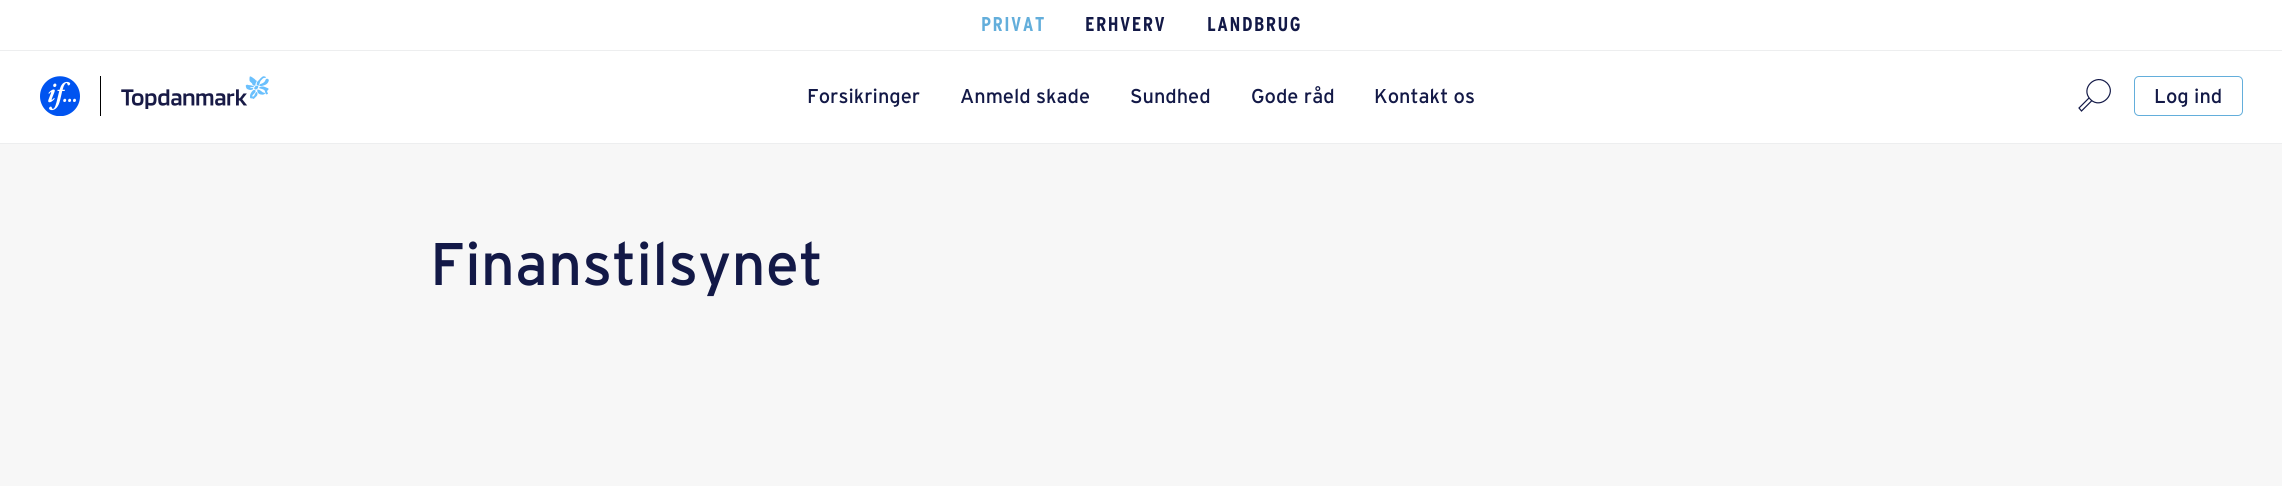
#include <cairo.h>
#include <math.h>
#include <stddef.h>

typedef struct { const char *family; double size; int italic, bold; unsigned color; } style_t;
static cairo_t *ctx;

static void ink(unsigned color) {
    cairo_set_source_rgb(ctx, (color >> 16) / 255.0, (color >> 8 & 255) / 255.0, (color & 255) / 255.0);
}

static void write(double x, double y, const char *s, const style_t *st) {
    cairo_select_font_face(ctx, st->family, st->italic ? CAIRO_FONT_SLANT_ITALIC : CAIRO_FONT_SLANT_NORMAL,
        st->bold ? CAIRO_FONT_WEIGHT_BOLD : CAIRO_FONT_WEIGHT_NORMAL);
    cairo_set_font_size(ctx, st->size);
    ink(st->color);
    cairo_move_to(ctx, x, y);
    cairo_show_text(ctx, s);
}

static void write_spaced(double x, double y, const char *s, double letter, double word) {
    cairo_move_to(ctx, x, y);
    while (*s) {
        char ch[5] = {0};
        int n = 0;
        do ch[n++] = *s++; while ((*s & 0xC0) == 0x80);
        cairo_show_text(ctx, ch);
        cairo_rel_move_to(ctx, letter + word * (*ch == ' '), 0);
    }
}

static void block(double x, double y, double w, double h, unsigned color) {
    ink(color);
    cairo_rectangle(ctx, x, y, w, h);
    cairo_fill(ctx);
}

static void round_path(double x, double y, double w, double h, double r) {
    cairo_new_sub_path(ctx);
    cairo_arc(ctx, x + w - r, y + h - r, r, 0, M_PI / 2);
    cairo_arc(ctx, x + r, y + h - r, r, M_PI / 2, M_PI);
    cairo_arc(ctx, x + r, y + r, r, M_PI, 1.5 * M_PI);
    cairo_arc(ctx, x + w - r, y + r, r, 1.5 * M_PI, 2 * M_PI);
    cairo_close_path(ctx);
}

static void paste(const char *path, double x, double y, double w, double h) {
    cairo_surface_t *image = cairo_image_surface_create_from_png(path);
    cairo_save(ctx);
    cairo_set_source_surface(ctx, image, x, y);
    cairo_rectangle(ctx, x, y, w, h);
    cairo_fill(ctx);
    cairo_restore(ctx);
    cairo_surface_destroy(image);
}

static const style_t s1 = {"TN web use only", 20, 0, 0, 0x131947};
static const style_t s2 = {"TN web use only", 60, 0, 0, 0x131947};

int main(void) {
    cairo_surface_t *surface = cairo_image_surface_create(CAIRO_FORMAT_RGB24, 2282, 486);
    ctx = cairo_create(surface);
    cairo_font_options_t *options = cairo_font_options_create();
    cairo_font_options_set_hint_metrics(options, CAIRO_HINT_METRICS_OFF);
    cairo_font_options_set_hint_style(options, CAIRO_HINT_STYLE_NONE);
    cairo_set_font_options(ctx, options);
    cairo_set_miter_limit(ctx, 4);
    ink(0xf7f7f7);
    cairo_paint(ctx);
    block(0, 0, 2282, 50, 0xffffff);
    block(0, 50, 2282, 1, 0xedeeef);
    cairo_select_font_face(ctx, "TN web use only", CAIRO_FONT_SLANT_NORMAL, CAIRO_FONT_WEIGHT_BOLD);
    cairo_set_font_size(ctx, 20);
    ink(0x63aedb);
    write_spaced(981, 31, "PRIVAT", 1.5, 0);
    ink(0x131947);
    write_spaced(1085, 31, "ERHVERV", 1.5, 0);
    write_spaced(1207, 31, "LANDBRUG", 1.5, 0);
    block(0, 51, 2282, 92, 0xffffff);
    block(0, 143, 2282, 1, 0xedeeef);
    paste("pic1.png", 40, 76, 229, 40);
    write(807, 103, "Forsikringer", &s1);
    write(960, 103, "Anmeld skade", &s1);
    write(1130, 103, "Sundhed", &s1);
    write(1251, 103, "Gode råd", &s1);
    write(1374, 103, "Kontakt os", &s1);
    cairo_new_path(ctx);
    cairo_move_to(ctx, 2107, 83);
    cairo_curve_to(ctx, 2117.5, 93.5, 2101, 110, 2090.5, 99.5);
    cairo_curve_to(ctx, 2079.5, 88.5, 2096, 72.5, 2107, 83);
    cairo_close_path(ctx);
    cairo_move_to(ctx, 2089, 98);
    cairo_line_to(ctx, 2079, 108);
    cairo_line_to(ctx, 2081.5, 111);
    cairo_line_to(ctx, 2092, 100.5);
    cairo_set_line_width(ctx, 1.2);
    cairo_stroke(ctx);
    round_path(2134.5, 76.5, 108, 39, 4.5);
    ink(0x63aedb);
    cairo_set_line_width(ctx, 1);
    cairo_stroke(ctx);
    write(2154, 103, "Log ind", &s1);
    write(430, 285, "Finanstilsynet", &s2);
    cairo_surface_write_to_png(surface, "screenshot.png");
    cairo_font_options_destroy(options);
    cairo_destroy(ctx);
    cairo_surface_destroy(surface);
    return 0;
}
